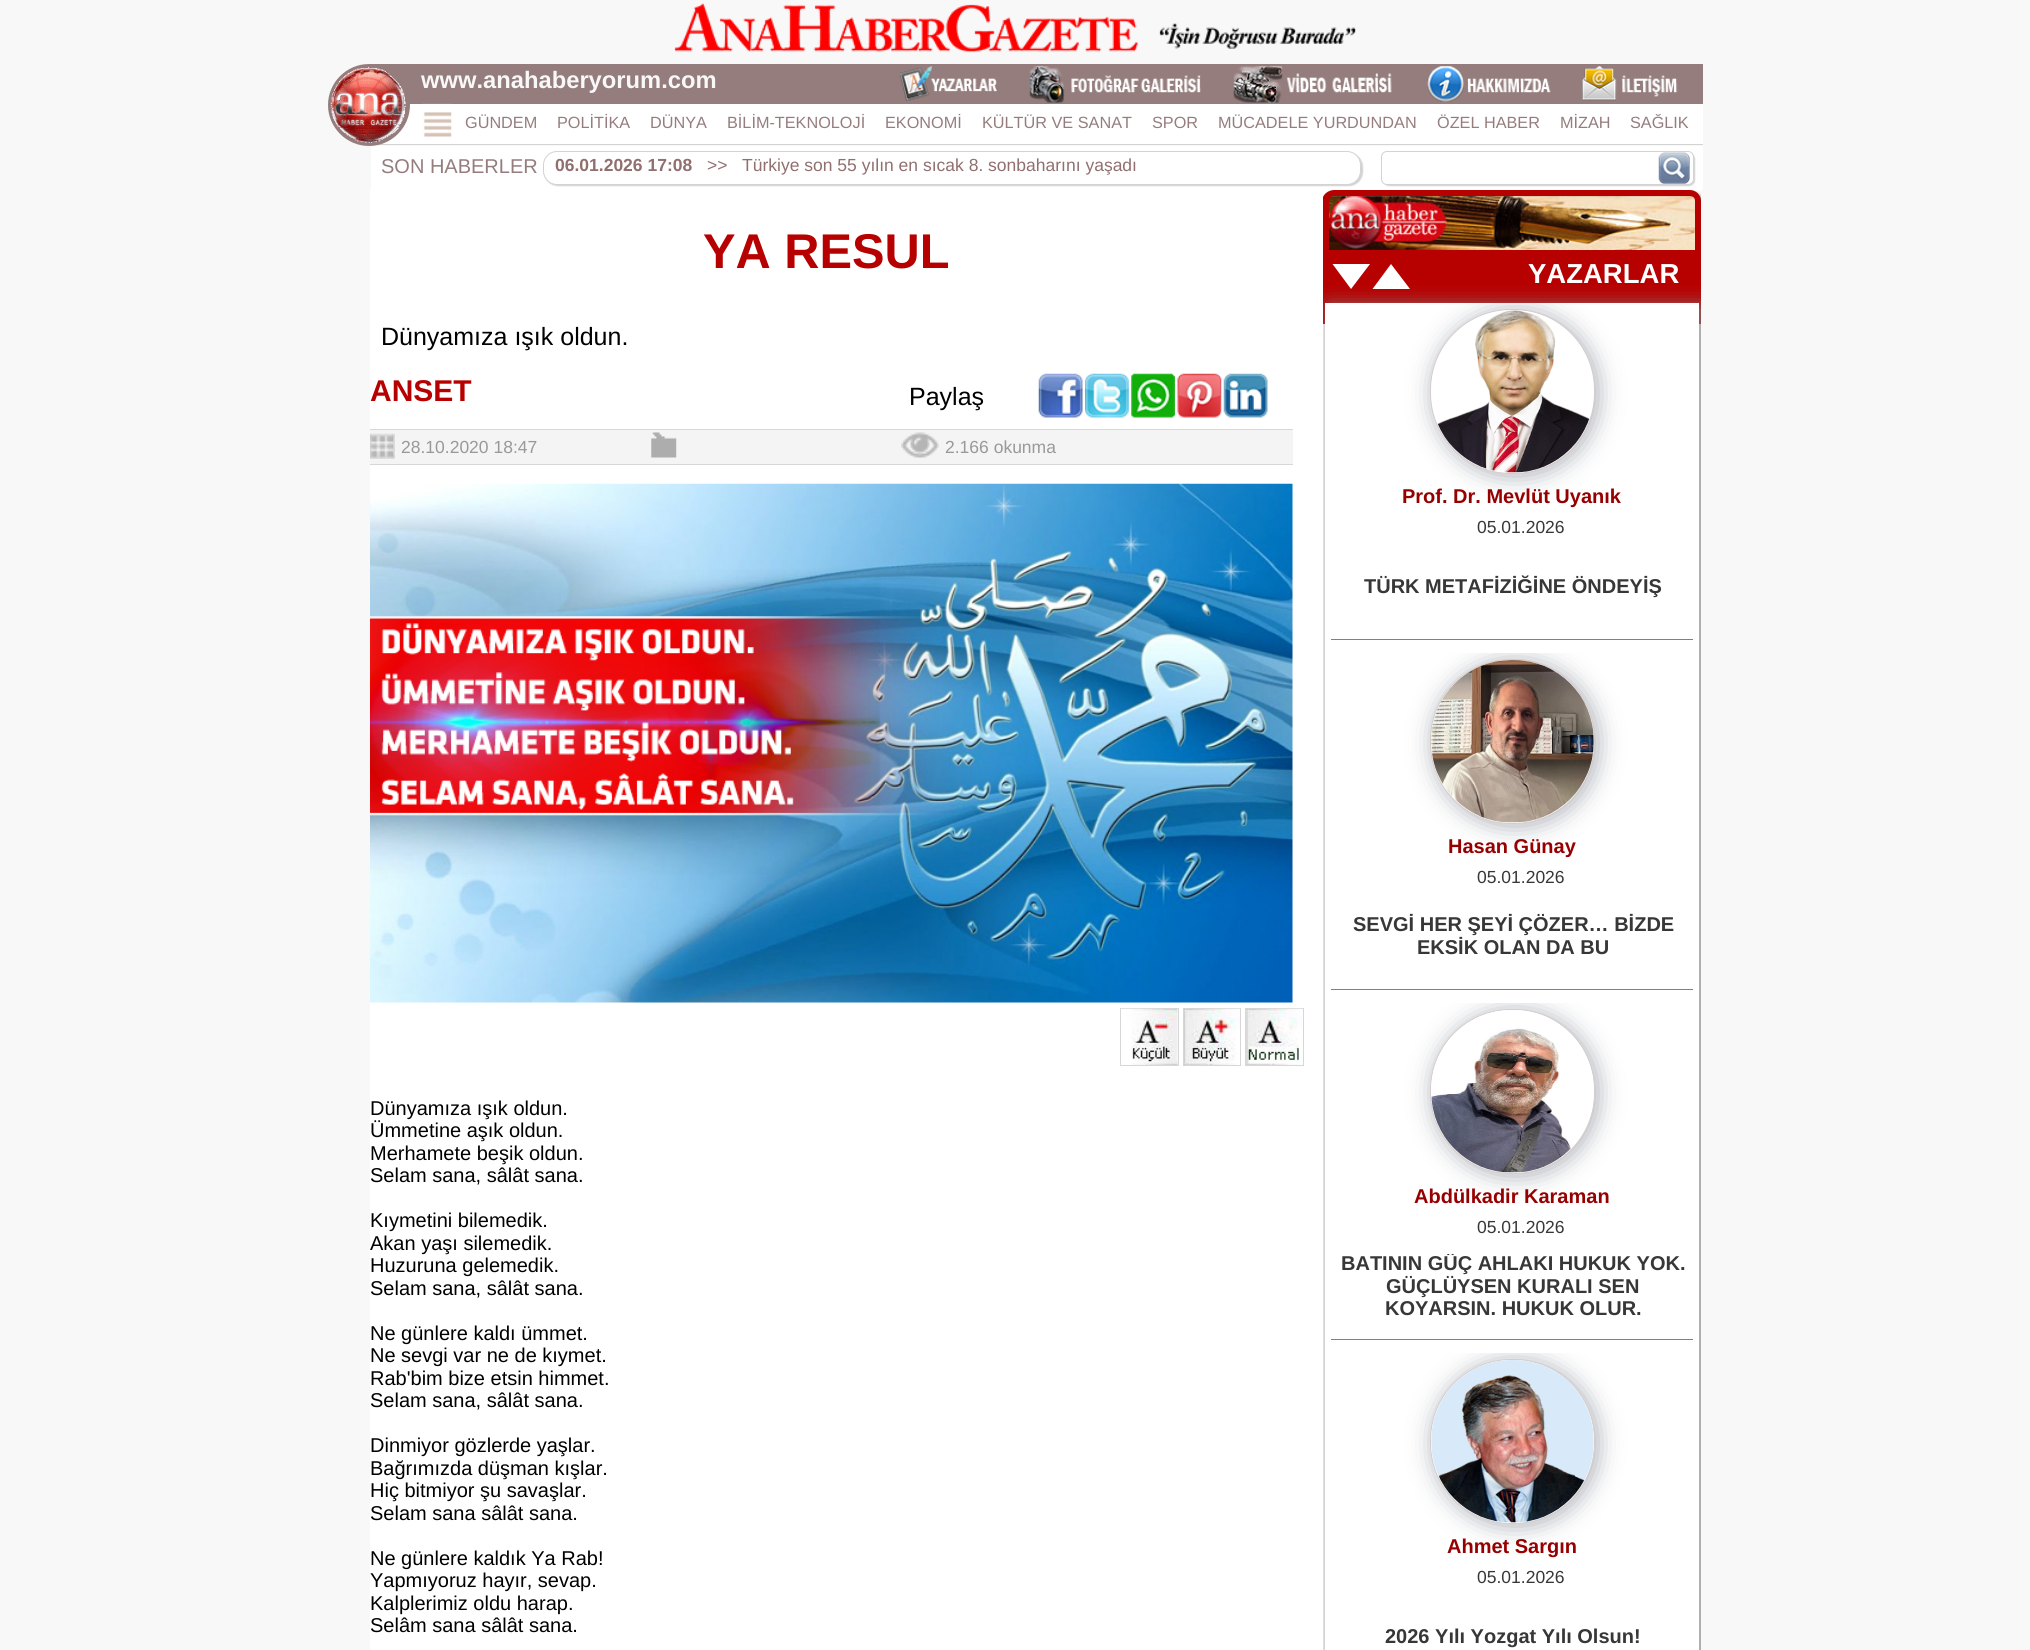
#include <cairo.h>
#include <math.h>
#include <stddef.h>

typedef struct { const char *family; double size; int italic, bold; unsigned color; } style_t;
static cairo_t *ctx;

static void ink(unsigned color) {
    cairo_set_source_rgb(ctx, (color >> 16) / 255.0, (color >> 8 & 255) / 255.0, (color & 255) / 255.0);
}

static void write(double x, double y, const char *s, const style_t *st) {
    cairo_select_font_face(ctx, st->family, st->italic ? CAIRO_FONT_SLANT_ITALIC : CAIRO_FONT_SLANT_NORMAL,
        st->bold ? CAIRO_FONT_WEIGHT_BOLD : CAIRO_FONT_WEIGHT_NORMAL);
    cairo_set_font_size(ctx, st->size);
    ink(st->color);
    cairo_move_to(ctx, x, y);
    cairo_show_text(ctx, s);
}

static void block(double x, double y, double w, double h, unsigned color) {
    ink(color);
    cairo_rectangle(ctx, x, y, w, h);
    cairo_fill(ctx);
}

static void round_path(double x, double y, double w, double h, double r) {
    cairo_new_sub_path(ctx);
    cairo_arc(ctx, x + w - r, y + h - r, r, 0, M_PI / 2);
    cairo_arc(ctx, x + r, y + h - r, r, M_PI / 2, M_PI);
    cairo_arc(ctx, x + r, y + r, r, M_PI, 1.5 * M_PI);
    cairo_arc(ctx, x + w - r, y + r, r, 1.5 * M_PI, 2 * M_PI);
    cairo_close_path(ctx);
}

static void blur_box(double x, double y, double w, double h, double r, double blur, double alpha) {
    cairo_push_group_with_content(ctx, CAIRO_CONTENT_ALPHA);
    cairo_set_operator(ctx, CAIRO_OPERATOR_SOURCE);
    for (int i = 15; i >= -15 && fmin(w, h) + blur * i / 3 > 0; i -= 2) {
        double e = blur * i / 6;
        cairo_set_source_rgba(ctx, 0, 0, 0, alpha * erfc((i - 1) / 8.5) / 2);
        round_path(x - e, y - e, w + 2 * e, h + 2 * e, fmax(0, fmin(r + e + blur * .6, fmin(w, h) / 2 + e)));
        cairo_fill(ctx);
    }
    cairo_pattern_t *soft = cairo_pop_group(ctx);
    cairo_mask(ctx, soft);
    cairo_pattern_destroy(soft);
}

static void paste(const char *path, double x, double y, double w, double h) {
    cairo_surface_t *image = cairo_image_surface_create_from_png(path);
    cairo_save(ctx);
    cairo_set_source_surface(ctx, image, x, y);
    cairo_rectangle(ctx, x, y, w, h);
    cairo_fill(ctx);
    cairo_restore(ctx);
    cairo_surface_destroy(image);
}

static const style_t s1 = {"Liberation Sans", 23.75, 0, 1, 0xf8f8f8};
static const style_t s2 = {"Liberation Sans", 16.25, 0, 0, 0x957d7d};
static const style_t s3 = {"Liberation Sans", 20, 0, 0, 0x957d7d};
static const style_t s4 = {"Liberation Sans", 17.5, 0, 1, 0x916f6f};
static const style_t s5 = {"Liberation Sans", 17.5, 0, 0, 0x916f6f};
static const style_t s6 = {"Liberation Sans", 48.75, 0, 1, 0xb70000};
static const style_t s7 = {"Liberation Sans", 25, 0, 0, 0x000000};
static const style_t s8 = {"Liberation Sans", 30, 0, 1, 0xb70000};
static const style_t s9 = {"Liberation Sans", 17.5, 0, 0, 0x9a9898};
static const style_t s10 = {"Liberation Sans", 20, 0, 0, 0x000000};
static const style_t s11 = {"Liberation Sans", 27.5, 0, 1, 0xffffff};
static const style_t s12 = {"Liberation Sans", 20, 0, 1, 0x970000};
static const style_t s13 = {"Liberation Sans", 17.5, 0, 0, 0x373737};
static const style_t s14 = {"Liberation Sans", 20, 0, 1, 0x373737};

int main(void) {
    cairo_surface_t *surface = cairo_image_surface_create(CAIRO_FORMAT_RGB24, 2030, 1650);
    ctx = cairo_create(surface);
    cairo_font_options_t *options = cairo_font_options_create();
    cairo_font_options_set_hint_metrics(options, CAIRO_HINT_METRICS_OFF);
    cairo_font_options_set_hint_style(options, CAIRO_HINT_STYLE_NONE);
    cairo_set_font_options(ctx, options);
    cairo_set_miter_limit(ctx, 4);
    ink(0xf8f8f8);
    cairo_paint(ctx);
    paste("pic1.png", 674, 3, 682, 50);
    block(381, 104, 1322, 40, 0xffffff);
    block(371, 144, 1332, 1, 0xd3d3d3);
    ink(0x957d7d);
    cairo_new_path(ctx);
    cairo_move_to(ctx, 369, 64);
    cairo_line_to(ctx, 410, 64);
    cairo_line_to(ctx, 410, 105);
    cairo_curve_to(ctx, 410, 127.5, 391.5, 146, 369, 146);
    cairo_curve_to(ctx, 346.5, 146, 328, 127.5, 328, 105);
    cairo_curve_to(ctx, 328, 82.5, 346.5, 64, 369, 64);
    cairo_close_path(ctx);
    cairo_fill(ctx);
    paste("pic2.png", 330, 67, 76, 76);
    block(410, 64, 1293, 40, 0x957d7d);
    write(421, 88, "www.anahaberyorum.com", &s1);
    paste("pic3.png", 899, 66, 98, 36);
    paste("pic4.png", 1029, 66, 172, 37);
    paste("pic5.png", 1233, 66, 159, 37);
    paste("pic6.png", 1427, 66, 124, 36);
    paste("pic7.png", 1582, 66, 96, 35);
    paste("pic8.png", 422, 103, 30, 34);
    write(465, 128, "GÜNDEM", &s2);
    write(557, 128, "POLİTİKA", &s2);
    write(650, 128, "DÜNYA", &s2);
    write(727, 128, "BİLİM-TEKNOLOJİ", &s2);
    write(885, 128, "EKONOMİ", &s2);
    write(982, 128, "KÜLTÜR VE SANAT", &s2);
    write(1152, 128, "SPOR", &s2);
    write(1218, 128, "MÜCADELE YURDUNDAN", &s2);
    write(1437, 128, "ÖZEL HABER", &s2);
    write(1560, 128, "MİZAH", &s2);
    write(1630, 128, "SAĞLIK", &s2);
    block(371, 146, 1332, 44, 0xffffff);
    write(381, 173, "SON HABERLER", &s3);
    ink(0xd3d3d3);
    blur_box(544, 153, 819, 33, 14, 0.5, 1);
    ink(0xffffff);
    round_path(543.5, 151.5, 817, 33, 13.5);
    cairo_fill_preserve(ctx);
    ink(0xd3d3d3);
    cairo_set_line_width(ctx, 1);
    cairo_stroke(ctx);
    write(555, 171, "06.01.2026 17:08", &s4);
    write(707, 171, ">>   Türkiye son 55 yılın en sıcak 8. sonbaharını yaşadı", &s5);
    ink(0xd3d3d3);
    blur_box(1383, 153, 312, 33, 6, 0.5, 1);
    ink(0xffffff);
    round_path(1381.5, 151.5, 312, 33, 5.5);
    cairo_fill_preserve(ctx);
    ink(0xd3d3d3);
    cairo_stroke(ctx);
    paste("pic9.png", 1658, 152, 32, 32);
    block(370, 190, 1331, 1460, 0xffffff);
    write(703, 268, "YA RESUL", &s6);
    write(381, 345, "Dünyamıza ışık oldun.", &s7);
    write(370, 401, "ANSET", &s8);
    write(909, 405, "Paylaş", &s7);
    paste("pic10.png", 1038, 373, 45, 45);
    paste("pic11.png", 1085, 373, 44, 45);
    paste("pic12.png", 1131, 373, 44, 45);
    paste("pic13.png", 1177, 373, 45, 45);
    paste("pic14.png", 1223, 373, 45, 45);
    block(370, 430, 923, 34, 0xf4f4f4);
    block(370, 429, 923, 1, 0xd7d7d7);
    block(370, 464, 923, 1, 0xd7d7d7);
    paste("pic15.png", 370, 433, 25, 26);
    write(401, 453, "28.10.2020 18:47", &s9);
    paste("pic16.png", 651, 432, 26, 26);
    paste("pic17.png", 901, 432, 38, 26);
    write(945, 453, "2.166 okunma", &s9);
    paste("pic18.png", 370, 483, 923, 520);
    cairo_rectangle(ctx, 1120.5, 1008.5, 58, 57);
    ink(0xd7d7d7);
    cairo_stroke(ctx);
    paste("pic19.png", 1121, 1008, 57, 57);
    cairo_rectangle(ctx, 1183.5, 1008.5, 57, 57);
    cairo_stroke(ctx);
    paste("pic20.png", 1183, 1008, 57, 57);
    cairo_save(ctx);
    cairo_rectangle(ctx, 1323, 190, 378, 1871);
    cairo_clip(ctx);
    ink(0x808080);
    blur_box(1326, 194, 379, 60, 11, 2.5, 1);
    cairo_restore(ctx);
    block(1323, 250, 378, 74, 0xb70000);
    cairo_save(ctx);
    cairo_rectangle(ctx, 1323, 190, 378, 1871);
    cairo_clip(ctx);
    ink(0x808080);
    blur_box(1329, 306, 374, 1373, 0, 9.5, 1);
    cairo_restore(ctx);
    cairo_rectangle(ctx, 1245.5, 1008.5, 58, 57);
    ink(0xd7d7d7);
    cairo_stroke(ctx);
    paste("pic21.png", 1246, 1008, 57, 57);
    write(370, 1115, "Dünyamıza ışık oldun.", &s10);
    write(370, 1137, "Ümmetine aşık oldun.", &s10);
    write(370, 1160, "Merhamete beşik oldun.", &s10);
    write(370, 1182, "Selam sana, sâlât sana.", &s10);
    write(370, 1227, "Kıymetini bilemedik.", &s10);
    write(370, 1250, "Akan yaşı silemedik.", &s10);
    write(370, 1272, "Huzuruna gelemedik.", &s10);
    write(370, 1295, "Selam sana, sâlât sana.", &s10);
    write(370, 1340, "Ne günlere kaldı ümmet.", &s10);
    write(370, 1362, "Ne sevgi var ne de kıymet.", &s10);
    write(370, 1385, "Rab'bim bize etsin himmet.", &s10);
    write(370, 1407, "Selam sana, sâlât sana.", &s10);
    write(370, 1452, "Dinmiyor gözlerde yaşlar.", &s10);
    write(370, 1475, "Bağrımızda düşman kışlar.", &s10);
    write(370, 1497, "Hiç bitmiyor şu savaşlar.", &s10);
    write(370, 1520, "Selam sana sâlât sana.", &s10);
    write(370, 1565, "Ne günlere kaldık Ya Rab!", &s10);
    write(370, 1587, "Yapmıyoruz hayır, sevap.", &s10);
    write(370, 1610, "Kalplerimiz oldu harap.", &s10);
    write(370, 1632, "Selâm sana sâlât sana.", &s10);
    paste("pic22.png", 1329, 196, 366, 54);
    cairo_save(ctx);
    cairo_rectangle(ctx, 1323, 190, 378, 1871);
    cairo_clip(ctx);
    ink(0xb70000);
    cairo_set_fill_rule(ctx, CAIRO_FILL_RULE_EVEN_ODD);
    cairo_new_path(ctx);
    cairo_move_to(ctx, 1334, 190);
    cairo_line_to(ctx, 1690, 190);
    cairo_curve_to(ctx, 1696, 190, 1701, 195, 1701, 201);
    cairo_line_to(ctx, 1701, 250);
    cairo_line_to(ctx, 1322, 250);
    cairo_line_to(ctx, 1322, 201);
    cairo_curve_to(ctx, 1322, 195, 1328, 190, 1334, 190);
    cairo_close_path(ctx);
    cairo_move_to(ctx, 1334, 196);
    cairo_line_to(ctx, 1690, 196);
    cairo_curve_to(ctx, 1693, 196, 1695, 198, 1695, 201);
    cairo_line_to(ctx, 1695, 250);
    cairo_line_to(ctx, 1329, 250);
    cairo_line_to(ctx, 1329, 201);
    cairo_curve_to(ctx, 1329, 198, 1331, 196, 1334, 196);
    cairo_close_path(ctx);
    cairo_fill(ctx);
    cairo_restore(ctx);
    ink(0xffffff);
    cairo_new_path(ctx);
    cairo_move_to(ctx, 1332.5, 264);
    cairo_line_to(ctx, 1370, 264);
    cairo_line_to(ctx, 1351, 289);
    cairo_close_path(ctx);
    cairo_fill(ctx);
    block(1325, 303, 374, 1347, 0xffffff);
    cairo_save(ctx);
    cairo_rectangle(ctx, 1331, 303, 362, 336);
    cairo_clip(ctx);
    ink(0xadb0b8);
    blur_box(1433, 311, 165, 165, 81, 12, 1);
    cairo_restore(ctx);
    cairo_new_path(ctx);
    cairo_move_to(ctx, 1410, 289);
    cairo_line_to(ctx, 1372.5, 289);
    cairo_line_to(ctx, 1391, 264);
    cairo_close_path(ctx);
    cairo_fill(ctx);
    write(1528, 283, "YAZARLAR", &s11);
    block(1331, 639, 362, 1, 0x808080);
    ink(0xffffff);
    round_path(1430.5, 309.5, 164, 164, 80.5);
    cairo_fill_preserve(ctx);
    ink(0xd5cccc);
    cairo_stroke(ctx);
    paste("pic23.png", 1437, 310, 153, 163);
    write(1402, 503, "Prof. Dr. Mevlüt Uyanık", &s12);
    write(1477, 533, "05.01.2026", &s13);
    write(1364, 593, "TÜRK METAFİZİĞİNE ÖNDEYİŞ", &s14);
    block(1331, 989, 362, 1, 0x808080);
    cairo_save(ctx);
    cairo_rectangle(ctx, 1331, 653, 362, 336);
    cairo_clip(ctx);
    ink(0xadb0b8);
    blur_box(1433, 661, 165, 165, 81, 12, 1);
    cairo_restore(ctx);
    ink(0xffffff);
    round_path(1430.5, 659.5, 164, 164, 80.5);
    cairo_fill_preserve(ctx);
    ink(0xd5cccc);
    cairo_stroke(ctx);
    paste("pic24.png", 1431, 660, 163, 163);
    write(1448, 853, "Hasan Günay", &s12);
    write(1477, 883, "05.01.2026", &s13);
    write(1353, 931, "SEVGİ HER ŞEYİ ÇÖZER… BİZDE", &s14);
    write(1417, 954, "EKSİK OLAN DA BU", &s14);
    block(1331, 1339, 362, 1, 0x808080);
    cairo_save(ctx);
    cairo_rectangle(ctx, 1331, 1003, 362, 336);
    cairo_clip(ctx);
    ink(0xadb0b8);
    blur_box(1433, 1011, 165, 165, 81, 12, 1);
    cairo_restore(ctx);
    ink(0xffffff);
    round_path(1430.5, 1009.5, 164, 164, 80.5);
    cairo_fill_preserve(ctx);
    ink(0xd5cccc);
    cairo_stroke(ctx);
    paste("pic25.png", 1431, 1010, 163, 163);
    write(1414, 1203, "Abdülkadir Karaman", &s12);
    write(1477, 1233, "05.01.2026", &s13);
    cairo_save(ctx);
    cairo_rectangle(ctx, 1333, 1254, 360, 65);
    cairo_clip(ctx);
    write(1341, 1270, "BATININ GÜÇ AHLAKI HUKUK YOK.", &s14);
    cairo_restore(ctx);
    write(1386, 1293, "GÜÇLÜYSEN KURALI SEN", &s14);
    write(1385, 1315, "KOYARSIN. HUKUK OLUR.", &s14);
    cairo_save(ctx);
    cairo_rectangle(ctx, 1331, 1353, 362, 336);
    cairo_clip(ctx);
    ink(0xadb0b8);
    blur_box(1433, 1361, 165, 165, 81, 12, 1);
    cairo_restore(ctx);
    ink(0xffffff);
    round_path(1430.5, 1359.5, 164, 164, 80.5);
    cairo_fill_preserve(ctx);
    ink(0xd5cccc);
    cairo_stroke(ctx);
    paste("pic26.png", 1431, 1360, 163, 163);
    write(1447, 1553, "Ahmet Sargın", &s12);
    write(1477, 1583, "05.01.2026", &s13);
    write(1385, 1643, "2026 Yılı Yozgat Yılı Olsun!", &s14);
    cairo_surface_write_to_png(surface, "screenshot.png");
    cairo_font_options_destroy(options);
    cairo_destroy(ctx);
    cairo_surface_destroy(surface);
    return 0;
}
